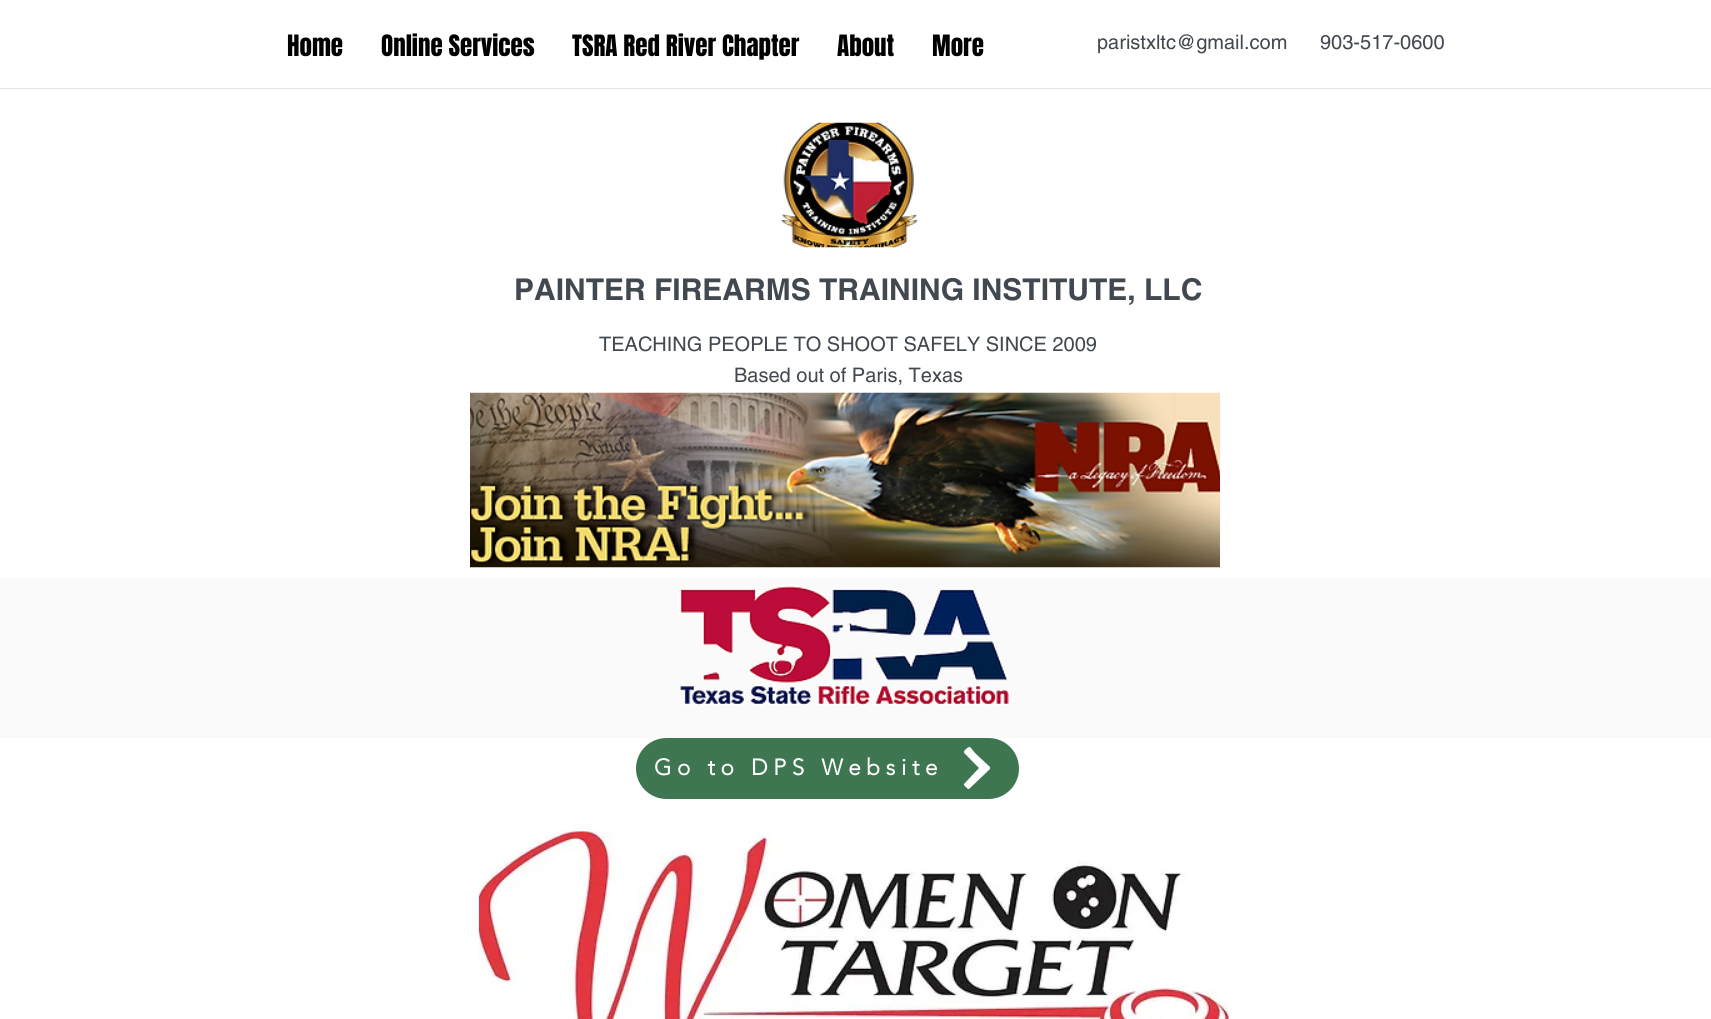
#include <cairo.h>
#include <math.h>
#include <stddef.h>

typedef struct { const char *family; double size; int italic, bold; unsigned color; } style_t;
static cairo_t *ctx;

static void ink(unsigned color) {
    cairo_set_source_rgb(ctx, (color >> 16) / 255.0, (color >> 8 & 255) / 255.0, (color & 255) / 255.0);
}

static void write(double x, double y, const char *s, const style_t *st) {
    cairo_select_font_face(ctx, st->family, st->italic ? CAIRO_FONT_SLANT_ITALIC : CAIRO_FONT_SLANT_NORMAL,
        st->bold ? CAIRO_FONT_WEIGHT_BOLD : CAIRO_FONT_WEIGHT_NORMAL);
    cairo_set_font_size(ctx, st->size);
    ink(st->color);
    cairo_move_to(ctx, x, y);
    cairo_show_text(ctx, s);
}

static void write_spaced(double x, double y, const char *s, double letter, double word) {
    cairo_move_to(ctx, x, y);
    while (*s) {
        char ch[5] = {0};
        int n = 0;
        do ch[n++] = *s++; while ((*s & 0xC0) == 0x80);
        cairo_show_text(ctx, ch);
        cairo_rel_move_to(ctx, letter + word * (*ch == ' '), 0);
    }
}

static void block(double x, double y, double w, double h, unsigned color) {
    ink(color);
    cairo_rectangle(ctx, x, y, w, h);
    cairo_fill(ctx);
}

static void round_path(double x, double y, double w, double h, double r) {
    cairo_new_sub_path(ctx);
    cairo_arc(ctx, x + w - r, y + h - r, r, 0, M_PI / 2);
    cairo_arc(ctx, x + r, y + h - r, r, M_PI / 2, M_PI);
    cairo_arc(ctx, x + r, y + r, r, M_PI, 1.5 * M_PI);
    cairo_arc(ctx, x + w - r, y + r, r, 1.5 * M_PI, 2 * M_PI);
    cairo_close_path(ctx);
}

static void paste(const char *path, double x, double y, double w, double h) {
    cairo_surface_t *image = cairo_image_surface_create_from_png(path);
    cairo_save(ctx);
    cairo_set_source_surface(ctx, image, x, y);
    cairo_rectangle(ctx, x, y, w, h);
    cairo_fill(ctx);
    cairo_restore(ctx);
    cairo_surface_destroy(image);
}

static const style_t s1 = {"Anton", 25, 0, 0, 0x000000};
static const style_t s2 = {"helvetica", 20, 0, 0, 0x42484f};
static const style_t s3 = {"helvetica", 30, 0, 1, 0x42484f};

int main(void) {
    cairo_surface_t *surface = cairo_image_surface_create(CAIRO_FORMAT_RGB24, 1711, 1019);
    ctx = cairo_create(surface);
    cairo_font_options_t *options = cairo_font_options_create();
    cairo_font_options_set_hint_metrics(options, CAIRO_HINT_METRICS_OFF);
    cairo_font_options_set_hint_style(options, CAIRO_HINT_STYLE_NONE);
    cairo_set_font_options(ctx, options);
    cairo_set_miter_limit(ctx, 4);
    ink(0xffffff);
    cairo_paint(ctx);
    write(287, 56, "Home", &s1);
    write(381, 56, "Online Services", &s1);
    write(572, 56, "TSRA Red River Chapter", &s1);
    write(837, 56, "About", &s1);
    write(932, 56, "More", &s1);
    write(1097, 49, "paristxltc@gmail.com", &s2);
    write(1320, 49, "903-517-0600", &s2);
    block(0, 88, 1711, 1, 0xe3e4e5);
    paste("pic1.png", 781, 122, 137, 126);
    write(514, 300, "PAINTER FIREARMS TRAINING INSTITUTE, LLC", &s3);
    write(599, 351, "TEACHING PEOPLE TO SHOOT SAFELY SINCE 2009", &s2);
    write(734, 382, "Based out of Paris, Texas", &s2);
    paste("pic2.png", 470, 392, 750, 176);
    block(0, 578, 1711, 160, 0xfafafa);
    paste("pic3.png", 679, 585, 331, 121);
    ink(0x3f7652);
    round_path(636, 738, 383, 61, 30.5);
    cairo_fill(ctx);
    cairo_select_font_face(ctx, "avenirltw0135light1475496", CAIRO_FONT_SLANT_NORMAL, CAIRO_FONT_WEIGHT_BOLD);
    cairo_set_font_size(ctx, 22.5);
    ink(0xffffff);
    write_spaced(654, 775, "Go to DPS Website", 5.6, 0);
    cairo_new_path(ctx);
    cairo_move_to(ctx, 990, 767);
    cairo_line_to(ctx, 976, 754);
    cairo_curve_to(ctx, 970, 748, 971, 744, 965, 750);
    cairo_curve_to(ctx, 962, 753, 966, 754, 969, 758);
    cairo_line_to(ctx, 979, 768);
    cairo_line_to(ctx, 964, 784);
    cairo_curve_to(ctx, 963, 785, 967, 788, 968, 789);
    cairo_line_to(ctx, 969, 789);
    cairo_line_to(ctx, 990, 769);
    cairo_close_path(ctx);
    cairo_fill(ctx);
    paste("pic4.png", 478, 831, 751, 188);
    cairo_surface_write_to_png(surface, "screenshot.png");
    cairo_font_options_destroy(options);
    cairo_destroy(ctx);
    cairo_surface_destroy(surface);
    return 0;
}
